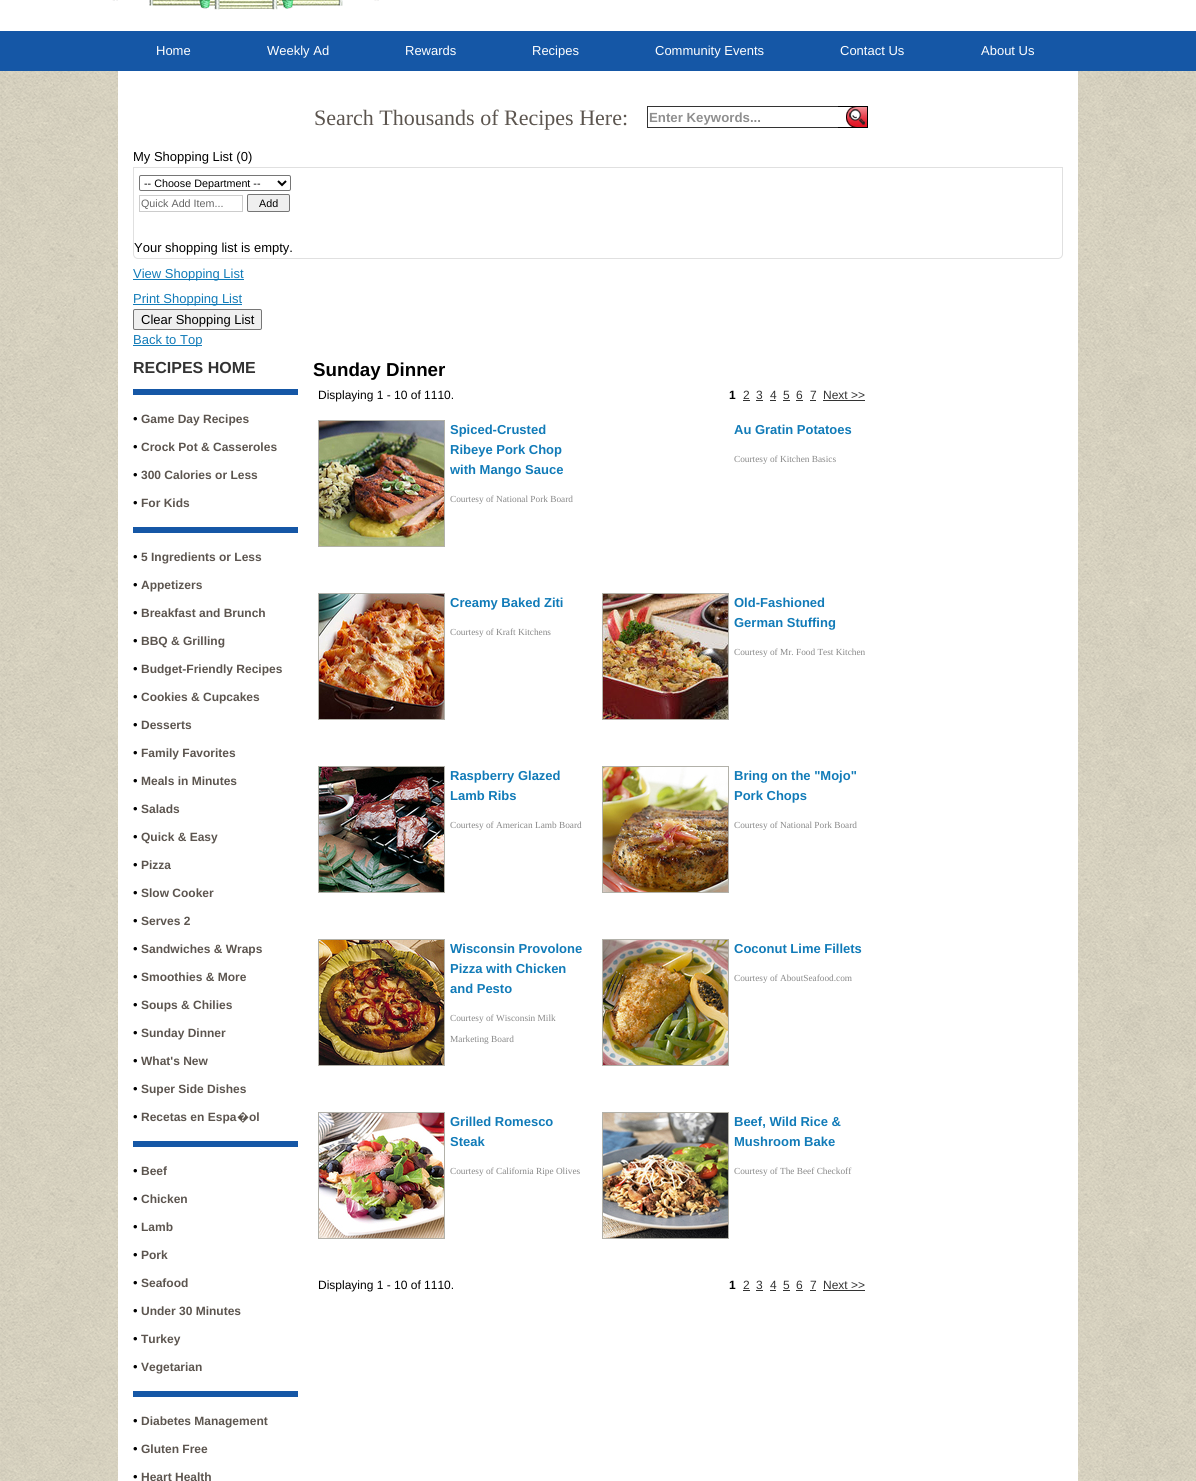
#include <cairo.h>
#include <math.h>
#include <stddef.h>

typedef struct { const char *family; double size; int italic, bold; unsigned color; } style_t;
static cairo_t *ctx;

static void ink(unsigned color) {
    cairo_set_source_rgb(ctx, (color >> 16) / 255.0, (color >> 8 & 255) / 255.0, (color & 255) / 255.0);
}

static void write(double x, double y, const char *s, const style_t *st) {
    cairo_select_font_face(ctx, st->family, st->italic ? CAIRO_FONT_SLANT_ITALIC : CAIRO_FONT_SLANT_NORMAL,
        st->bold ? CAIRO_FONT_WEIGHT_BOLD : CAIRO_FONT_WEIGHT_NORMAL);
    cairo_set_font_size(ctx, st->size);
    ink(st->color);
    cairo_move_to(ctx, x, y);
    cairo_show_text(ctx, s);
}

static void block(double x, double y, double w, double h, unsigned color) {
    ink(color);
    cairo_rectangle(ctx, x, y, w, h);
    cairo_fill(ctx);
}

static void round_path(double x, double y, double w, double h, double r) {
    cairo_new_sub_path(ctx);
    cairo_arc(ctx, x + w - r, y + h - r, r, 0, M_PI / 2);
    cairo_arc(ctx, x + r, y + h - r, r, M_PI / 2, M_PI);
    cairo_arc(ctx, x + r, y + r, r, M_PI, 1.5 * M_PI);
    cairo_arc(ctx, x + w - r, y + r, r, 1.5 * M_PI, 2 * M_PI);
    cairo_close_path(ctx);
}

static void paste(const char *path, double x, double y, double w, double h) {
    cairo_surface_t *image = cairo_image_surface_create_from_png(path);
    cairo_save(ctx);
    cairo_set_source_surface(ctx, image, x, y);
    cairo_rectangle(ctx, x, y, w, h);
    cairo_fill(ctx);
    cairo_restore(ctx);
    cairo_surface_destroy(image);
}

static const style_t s1 = {"Liberation Sans", 13, 0, 0, 0xffffff};
static const style_t s2 = {"Liberation Serif", 22, 0, 0, 0x5c554f};
static const style_t s3 = {"Liberation Sans", 13.25, 0, 1, 0x8f8f8f};
static const style_t s4 = {"Liberation Sans", 13, 0, 0, 0x000000};
static const style_t s5 = {"Liberation Sans", 10.75, 0, 0, 0x000000};
static const style_t s6 = {"Liberation Sans", 10.75, 0, 0, 0x666666};
static const style_t s7 = {"Liberation Sans", 13, 0, 0, 0x117bb8};
static const style_t s8 = {"Liberation Sans", 16, 0, 1, 0x333333};
static const style_t s9 = {"Liberation Sans", 12, 0, 1, 0x5c554f};
static const style_t s10 = {"Noto Sans", 12, 0, 1, 0x5c554f};
static const style_t s11 = {"Liberation Sans", 18.75, 0, 1, 0x000000};
static const style_t s12 = {"Liberation Sans", 12, 0, 0, 0x000000};
static const style_t s13 = {"Liberation Sans", 12, 0, 1, 0x000000};
static const style_t s14 = {"Liberation Sans", 12, 0, 0, 0x333333};
static const style_t s15 = {"Liberation Sans", 13, 0, 1, 0x117bb8};
static const style_t s16 = {"Liberation Serif", 9.3, 0, 0, 0x888888};

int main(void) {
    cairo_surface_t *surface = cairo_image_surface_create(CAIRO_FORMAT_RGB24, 1196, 1481);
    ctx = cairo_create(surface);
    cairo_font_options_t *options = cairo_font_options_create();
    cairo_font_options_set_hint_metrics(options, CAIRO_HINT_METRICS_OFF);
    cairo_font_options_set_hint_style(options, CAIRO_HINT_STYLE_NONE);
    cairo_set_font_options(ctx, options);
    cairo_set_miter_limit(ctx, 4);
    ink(0xe8e2ce);
    cairo_paint(ctx);
    paste("pic1.png", 0, 71, 1196, 1410);
    block(0, 0, 1196, 31, 0xffffff);
    paste("pic2.png", 112, 0, 267, 10);
    block(0, 31, 1196, 40, 0x1557a6);
    write(156, 55, "Home", &s1);
    write(267, 55, "Weekly Ad", &s1);
    write(405, 55, "Rewards", &s1);
    write(532, 55, "Recipes", &s1);
    write(655, 55, "Community Events", &s1);
    write(840, 55, "Contact Us", &s1);
    write(981, 55, "About Us", &s1);
    block(118, 71, 960, 1410, 0xffffff);
    write(314, 125, "Search Thousands of Recipes Here:", &s2);
    block(647, 106, 191, 1, 0x333333);
    block(647, 127, 191, 1, 0x333333);
    block(647, 106, 1, 22, 0x333333);
    write(649, 122, "Enter Keywords...", &s3);
    paste("pic3.png", 838, 106, 30, 22);
    write(133, 161, "My Shopping List (0)", &s4);
    cairo_new_path(ctx);
    cairo_move_to(ctx, 133.5, 167.5);
    cairo_line_to(ctx, 1062.5, 167.5);
    cairo_line_to(ctx, 1062.5, 254);
    cairo_curve_to(ctx, 1062.5, 256.5, 1060.5, 258.5, 1058, 258.5);
    cairo_line_to(ctx, 138, 258.5);
    cairo_curve_to(ctx, 135.5, 258.5, 133.5, 256.5, 133.5, 254);
    cairo_close_path(ctx);
    ink(0xe0e0e0);
    cairo_set_line_width(ctx, 1);
    cairo_stroke(ctx);
    round_path(139.5, 175.5, 151, 15, 1.5);
    ink(0x767676);
    cairo_stroke(ctx);
    cairo_new_path(ctx);
    cairo_move_to(ctx, 278, 181);
    cairo_line_to(ctx, 282, 185);
    cairo_line_to(ctx, 286, 181);
    ink(0x000000);
    cairo_set_line_width(ctx, 2);
    cairo_stroke(ctx);
    write(144, 187, "-- Choose Department --", &s5);
    cairo_rectangle(ctx, 139.5, 195.5, 103, 16);
    ink(0xcccccc);
    cairo_set_line_width(ctx, 1);
    cairo_stroke(ctx);
    write(141, 207, "Quick Add Item...", &s6);
    ink(0xefefef);
    round_path(247.5, 194.5, 42, 17, 1.5);
    cairo_fill_preserve(ctx);
    ink(0x767676);
    cairo_stroke(ctx);
    write(259, 207, "Add", &s5);
    write(134, 252, "Your shopping list is empty.", &s4);
    block(133, 279, 111, 1, 0x117bb8);
    write(133, 278, "View Shopping List", &s7);
    block(133, 304, 109, 1, 0x117bb8);
    write(133, 303, "Print Shopping List", &s7);
    ink(0xefefef);
    round_path(133.5, 309.5, 128, 20, 1.5);
    cairo_fill_preserve(ctx);
    ink(0x767676);
    cairo_stroke(ctx);
    write(141, 324, "Clear Shopping List", &s4);
    block(133, 345, 69, 1, 0x117bb8);
    write(133, 344, "Back to Top", &s7);
    write(133, 373, "RECIPES HOME", &s8);
    block(133, 389, 165, 6, 0x1557a6);
    write(133, 423, "•", &s4);
    write(141, 423, "Game Day Recipes", &s9);
    write(133, 451, "•", &s4);
    write(141, 451, "Crock Pot & Casseroles", &s9);
    write(133, 479, "•", &s4);
    write(141, 479, "300 Calories or Less", &s9);
    write(133, 507, "•", &s4);
    write(141, 507, "For Kids", &s9);
    block(133, 527, 165, 6, 0x1557a6);
    write(133, 561, "•", &s4);
    write(141, 561, "5 Ingredients or Less", &s9);
    write(133, 589, "•", &s4);
    write(141, 589, "Appetizers", &s9);
    write(133, 617, "•", &s4);
    write(141, 617, "Breakfast and Brunch", &s9);
    write(133, 645, "•", &s4);
    write(141, 645, "BBQ & Grilling", &s9);
    write(133, 673, "•", &s4);
    write(141, 673, "Budget-Friendly Recipes", &s9);
    write(133, 701, "•", &s4);
    write(141, 701, "Cookies & Cupcakes", &s9);
    write(133, 729, "•", &s4);
    write(141, 729, "Desserts", &s9);
    write(133, 757, "•", &s4);
    write(141, 757, "Family Favorites", &s9);
    write(133, 785, "•", &s4);
    write(141, 785, "Meals in Minutes", &s9);
    write(133, 813, "•", &s4);
    write(141, 813, "Salads", &s9);
    write(133, 841, "•", &s4);
    write(141, 841, "Quick & Easy", &s9);
    write(133, 869, "•", &s4);
    write(141, 869, "Pizza", &s9);
    write(133, 897, "•", &s4);
    write(141, 897, "Slow Cooker", &s9);
    write(133, 925, "•", &s4);
    write(141, 925, "Serves 2", &s9);
    write(133, 953, "•", &s4);
    write(141, 953, "Sandwiches & Wraps", &s9);
    write(133, 981, "•", &s4);
    write(141, 981, "Smoothies & More", &s9);
    write(133, 1009, "•", &s4);
    write(141, 1009, "Soups & Chilies", &s9);
    write(133, 1037, "•", &s4);
    write(141, 1037, "Sunday Dinner", &s9);
    write(133, 1065, "•", &s4);
    write(141, 1065, "What's New", &s9);
    write(133, 1093, "•", &s4);
    write(141, 1093, "Super Side Dishes", &s9);
    write(133, 1121, "•", &s4);
    write(141, 1121, "Recetas en Espa", &s9);
    write(237, 1121, "�", &s10);
    write(249, 1121, "ol", &s9);
    block(133, 1141, 165, 6, 0x1557a6);
    write(133, 1175, "•", &s4);
    write(141, 1175, "Beef", &s9);
    write(133, 1203, "•", &s4);
    write(141, 1203, "Chicken", &s9);
    write(133, 1231, "•", &s4);
    write(141, 1231, "Lamb", &s9);
    write(133, 1259, "•", &s4);
    write(141, 1259, "Pork", &s9);
    write(133, 1287, "•", &s4);
    write(141, 1287, "Seafood", &s9);
    write(133, 1315, "•", &s4);
    write(141, 1315, "Under 30 Minutes", &s9);
    write(133, 1343, "•", &s4);
    write(141, 1343, "Turkey", &s9);
    write(133, 1371, "•", &s4);
    write(141, 1371, "Vegetarian", &s9);
    block(133, 1391, 165, 6, 0x1557a6);
    write(133, 1425, "•", &s4);
    write(141, 1425, "Diabetes Management", &s9);
    write(133, 1453, "•", &s4);
    write(141, 1453, "Gluten Free", &s9);
    write(133, 1481, "•", &s4);
    write(141, 1481, "Heart Health", &s9);
    write(313, 376, "Sunday Dinner", &s11);
    write(318, 399, "Displaying 1 - 10 of 1110.", &s12);
    write(729, 399, "1", &s13);
    write(743, 399, "2", &s14);
    block(743, 400, 7, 1, 0x333333);
    write(756, 399, "3", &s14);
    block(756, 400, 7, 1, 0x333333);
    write(770, 399, "4", &s14);
    block(770, 400, 6, 1, 0x333333);
    write(783, 399, "5", &s14);
    block(783, 400, 7, 1, 0x333333);
    write(796, 399, "6", &s14);
    block(796, 400, 7, 1, 0x333333);
    write(810, 399, "7", &s14);
    block(810, 400, 6, 1, 0x333333);
    write(823, 399, "Next >>", &s14);
    block(823, 400, 42, 1, 0x333333);
    cairo_rectangle(ctx, 318.5, 420.5, 126, 126);
    ink(0xb2b1a9);
    cairo_stroke(ctx);
    paste("pic4.png", 319, 421, 125, 125);
    write(450, 434, "Spiced-Crusted", &s15);
    write(450, 454, "Ribeye Pork Chop", &s15);
    write(450, 474, "with Mango Sauce", &s15);
    write(450, 502, "Courtesy of National Pork Board", &s16);
    write(734, 434, "Au Gratin Potatoes", &s15);
    write(734, 462, "Courtesy of Kitchen Basics", &s16);
    cairo_rectangle(ctx, 318.5, 593.5, 126, 126);
    ink(0xb2b1a9);
    cairo_stroke(ctx);
    paste("pic5.png", 319, 594, 125, 125);
    write(450, 607, "Creamy Baked Ziti", &s15);
    write(450, 635, "Courtesy of Kraft Kitchens", &s16);
    cairo_rectangle(ctx, 602.5, 593.5, 126, 126);
    ink(0xb2b1a9);
    cairo_stroke(ctx);
    paste("pic6.png", 603, 594, 125, 125);
    write(734, 607, "Old-Fashioned", &s15);
    write(734, 627, "German Stuffing", &s15);
    write(734, 655, "Courtesy of Mr. Food Test Kitchen", &s16);
    cairo_rectangle(ctx, 318.5, 766.5, 126, 126);
    ink(0xb2b1a9);
    cairo_stroke(ctx);
    paste("pic7.png", 319, 767, 125, 125);
    write(450, 780, "Raspberry Glazed", &s15);
    write(450, 800, "Lamb Ribs", &s15);
    write(450, 828, "Courtesy of American Lamb Board", &s16);
    cairo_rectangle(ctx, 602.5, 766.5, 126, 126);
    ink(0xb2b1a9);
    cairo_stroke(ctx);
    paste("pic8.png", 603, 767, 125, 125);
    write(734, 780, "Bring on the \"Mojo\"", &s15);
    write(734, 800, "Pork Chops", &s15);
    write(734, 828, "Courtesy of National Pork Board", &s16);
    cairo_rectangle(ctx, 318.5, 939.5, 126, 126);
    ink(0xb2b1a9);
    cairo_stroke(ctx);
    paste("pic9.png", 319, 940, 125, 125);
    write(450, 953, "Wisconsin Provolone", &s15);
    write(450, 973, "Pizza with Chicken", &s15);
    write(450, 993, "and Pesto", &s15);
    write(450, 1021, "Courtesy of Wisconsin Milk", &s16);
    write(450, 1042, "Marketing Board", &s16);
    cairo_rectangle(ctx, 602.5, 939.5, 126, 126);
    ink(0xb2b1a9);
    cairo_stroke(ctx);
    paste("pic10.png", 603, 940, 125, 125);
    write(734, 953, "Coconut Lime Fillets", &s15);
    write(734, 981, "Courtesy of AboutSeafood.com", &s16);
    cairo_rectangle(ctx, 318.5, 1112.5, 126, 126);
    ink(0xb2b1a9);
    cairo_stroke(ctx);
    paste("pic11.png", 319, 1113, 125, 125);
    write(450, 1126, "Grilled Romesco", &s15);
    write(450, 1146, "Steak", &s15);
    write(450, 1174, "Courtesy of California Ripe Olives", &s16);
    cairo_rectangle(ctx, 602.5, 1112.5, 126, 126);
    ink(0xb2b1a9);
    cairo_stroke(ctx);
    paste("pic12.png", 603, 1113, 125, 125);
    write(734, 1126, "Beef, Wild Rice &", &s15);
    write(734, 1146, "Mushroom Bake", &s15);
    write(734, 1174, "Courtesy of The Beef Checkoff", &s16);
    write(318, 1289, "Displaying 1 - 10 of 1110.", &s12);
    write(729, 1289, "1", &s13);
    write(743, 1289, "2", &s14);
    block(743, 1290, 7, 1, 0x333333);
    write(756, 1289, "3", &s14);
    block(756, 1290, 7, 1, 0x333333);
    write(770, 1289, "4", &s14);
    block(770, 1290, 6, 1, 0x333333);
    write(783, 1289, "5", &s14);
    block(783, 1290, 7, 1, 0x333333);
    write(796, 1289, "6", &s14);
    block(796, 1290, 7, 1, 0x333333);
    write(810, 1289, "7", &s14);
    block(810, 1290, 6, 1, 0x333333);
    write(823, 1289, "Next >>", &s14);
    block(823, 1290, 42, 1, 0x333333);
    cairo_surface_write_to_png(surface, "screenshot.png");
    cairo_font_options_destroy(options);
    cairo_destroy(ctx);
    cairo_surface_destroy(surface);
    return 0;
}
